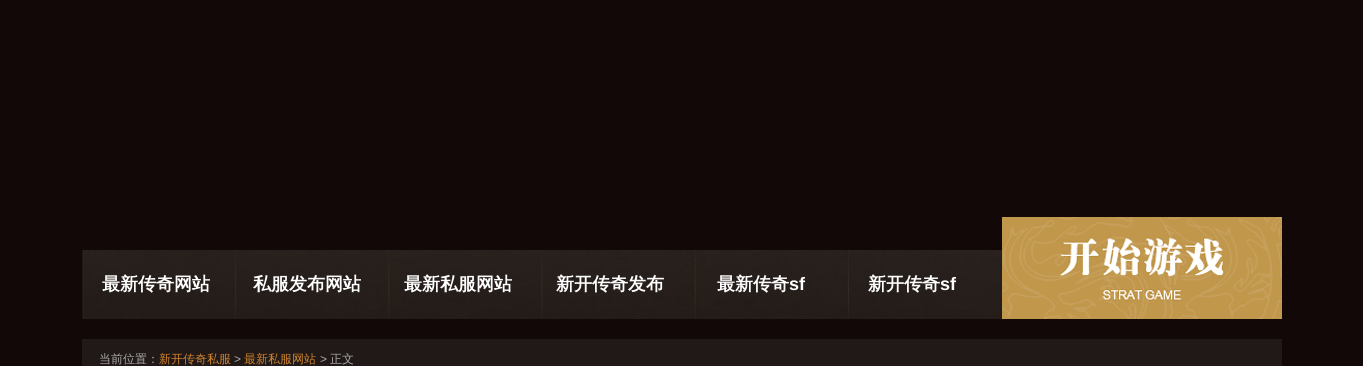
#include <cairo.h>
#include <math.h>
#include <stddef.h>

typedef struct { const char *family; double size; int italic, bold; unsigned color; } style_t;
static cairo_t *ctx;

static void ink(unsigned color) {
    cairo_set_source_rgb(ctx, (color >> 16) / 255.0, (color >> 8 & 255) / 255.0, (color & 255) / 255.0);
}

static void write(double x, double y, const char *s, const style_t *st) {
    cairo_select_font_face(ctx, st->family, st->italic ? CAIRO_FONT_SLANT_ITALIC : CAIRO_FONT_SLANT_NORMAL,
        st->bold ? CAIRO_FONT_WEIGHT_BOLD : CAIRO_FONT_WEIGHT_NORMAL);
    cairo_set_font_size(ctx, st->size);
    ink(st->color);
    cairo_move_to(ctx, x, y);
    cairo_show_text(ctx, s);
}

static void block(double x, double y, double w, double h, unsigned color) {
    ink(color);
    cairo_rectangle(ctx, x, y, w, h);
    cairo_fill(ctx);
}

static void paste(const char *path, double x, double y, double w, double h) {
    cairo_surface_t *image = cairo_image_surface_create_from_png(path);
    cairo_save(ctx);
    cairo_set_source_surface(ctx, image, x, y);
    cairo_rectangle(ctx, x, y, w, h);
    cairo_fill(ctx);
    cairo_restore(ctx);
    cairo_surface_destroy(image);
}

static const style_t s1 = {"WenQuanYi Zen Hei", 18, 0, 1, 0xffffff};
static const style_t s2 = {"Liberation Sans", 18, 0, 1, 0xffffff};
static const style_t s3 = {"WenQuanYi Zen Hei Medium", 12, 0, 0, 0xaaaaaa};
static const style_t s4 = {"WenQuanYi Zen Hei Medium", 12, 0, 0, 0xce822c};
static const style_t s5 = {"Liberation Sans", 12, 0, 0, 0xaaaaaa};

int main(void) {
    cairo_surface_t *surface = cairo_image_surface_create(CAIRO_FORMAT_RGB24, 1363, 366);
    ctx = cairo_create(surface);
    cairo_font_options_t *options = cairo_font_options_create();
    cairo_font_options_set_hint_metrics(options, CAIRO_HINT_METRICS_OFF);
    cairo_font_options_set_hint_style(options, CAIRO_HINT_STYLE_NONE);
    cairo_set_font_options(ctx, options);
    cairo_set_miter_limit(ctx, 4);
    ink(0x120807);
    cairo_paint(ctx);
    paste("pic1.png", 82, 250, 920, 69);
    write(102, 290, "最新传奇网站", &s1);
    write(253, 290, "私服发布网站", &s1);
    write(404, 290, "最新私服网站", &s1);
    write(556, 290, "新开传奇发布", &s1);
    write(717, 290, "最新传奇", &s1);
    write(789, 290, "sf", &s2);
    write(868, 290, "新开传奇", &s1);
    write(940, 290, "sf", &s2);
    paste("pic2.png", 1002, 217, 280, 102);
    block(82, 339, 1200, 27, 0x201917);
    write(99, 363, "当前位置：", &s3);
    write(159, 363, "新开传奇私服", &s4);
    write(234, 363, ">", &s5);
    write(244, 363, "最新私服网站", &s4);
    write(320, 363, ">", &s5);
    write(330, 363, "正文", &s3);
    cairo_surface_write_to_png(surface, "screenshot.png");
    cairo_font_options_destroy(options);
    cairo_destroy(ctx);
    cairo_surface_destroy(surface);
    return 0;
}
